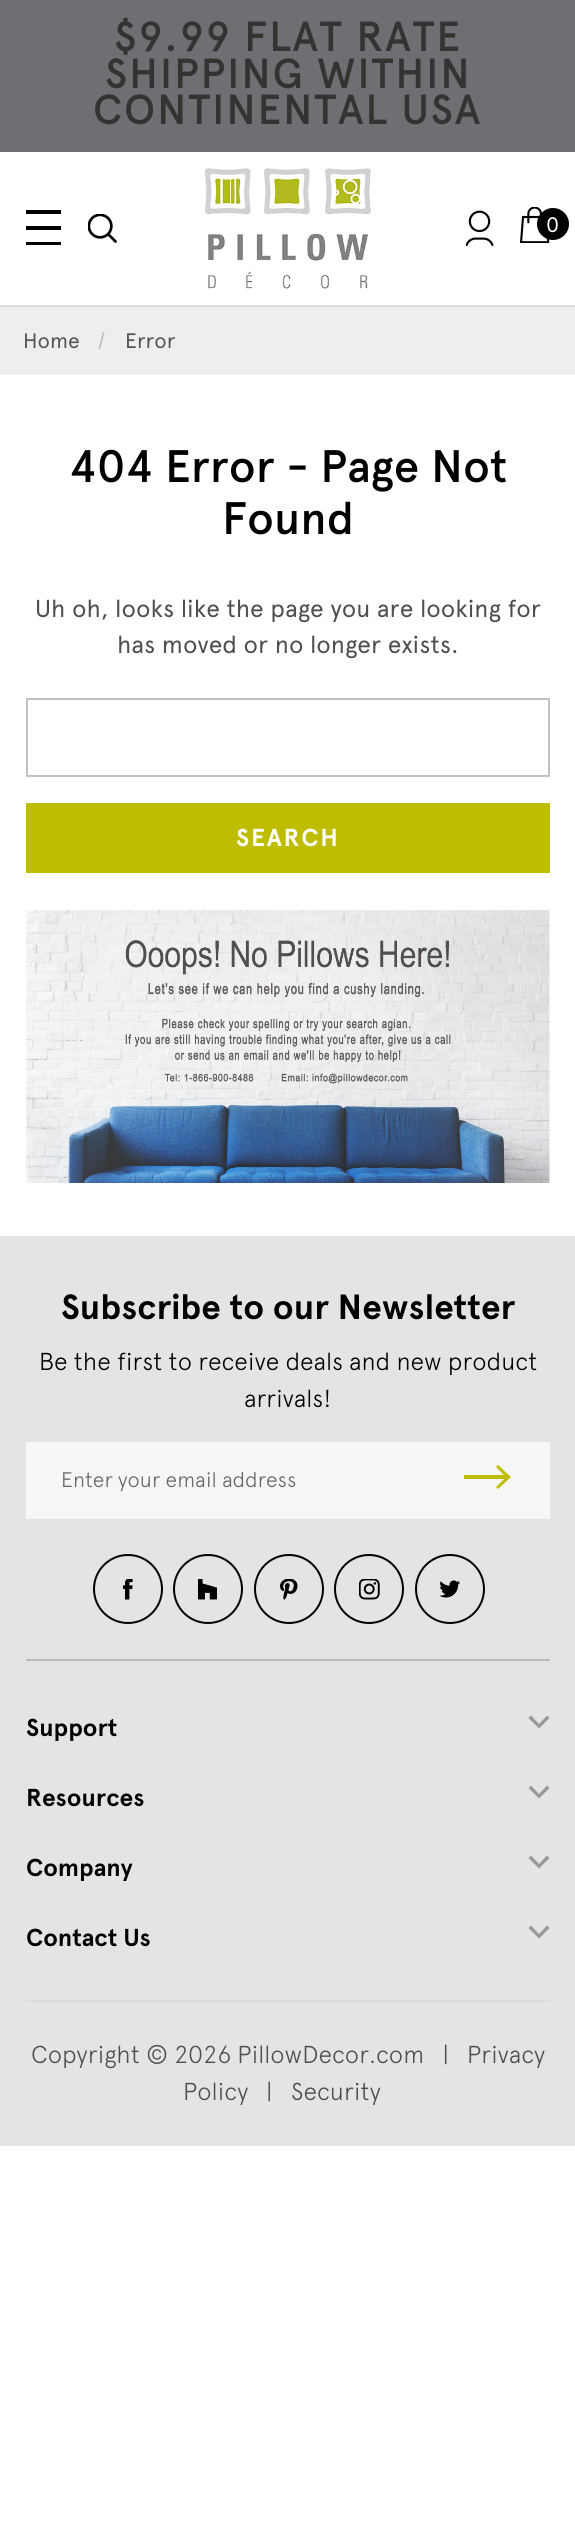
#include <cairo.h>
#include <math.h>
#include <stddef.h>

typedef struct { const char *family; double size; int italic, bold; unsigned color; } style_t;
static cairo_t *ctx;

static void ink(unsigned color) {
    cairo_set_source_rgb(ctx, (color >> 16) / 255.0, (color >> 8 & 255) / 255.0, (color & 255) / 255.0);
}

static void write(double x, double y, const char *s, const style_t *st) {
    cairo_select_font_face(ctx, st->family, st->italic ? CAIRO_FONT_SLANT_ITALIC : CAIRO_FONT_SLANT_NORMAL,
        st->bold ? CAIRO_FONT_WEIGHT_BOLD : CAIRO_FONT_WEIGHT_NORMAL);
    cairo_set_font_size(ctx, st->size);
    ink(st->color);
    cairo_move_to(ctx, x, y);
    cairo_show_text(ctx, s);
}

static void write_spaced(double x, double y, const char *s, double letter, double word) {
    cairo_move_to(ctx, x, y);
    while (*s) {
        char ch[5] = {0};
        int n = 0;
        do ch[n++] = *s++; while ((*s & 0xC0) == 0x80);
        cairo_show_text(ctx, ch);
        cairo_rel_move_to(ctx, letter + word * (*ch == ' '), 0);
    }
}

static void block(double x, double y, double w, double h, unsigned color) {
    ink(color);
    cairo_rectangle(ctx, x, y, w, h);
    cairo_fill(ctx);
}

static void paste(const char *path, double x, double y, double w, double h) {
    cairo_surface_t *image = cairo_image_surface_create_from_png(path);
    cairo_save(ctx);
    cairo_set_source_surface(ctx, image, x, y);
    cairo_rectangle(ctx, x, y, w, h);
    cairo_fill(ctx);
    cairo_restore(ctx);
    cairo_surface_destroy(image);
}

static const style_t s1 = {"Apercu", 21, 0, 0, 0xffffff};
static const style_t s2 = {"Apercu", 21, 0, 0, 0x555555};
static const style_t s3 = {"Apercu Medium", 45.5, 0, 0, 0x000000};
static const style_t s4 = {"Apercu", 24.5, 0, 0, 0x4f4f4f};
static const style_t s5 = {"Apercu", 35, 0, 1, 0x000000};
static const style_t s6 = {"Apercu Light", 24.5, 0, 0, 0x000000};
static const style_t s7 = {"Apercu Light", 21, 0, 0, 0x666666};
static const style_t s8 = {"Apercu", 24.5, 0, 1, 0x000000};
static const style_t s9 = {"Apercu Light", 24.5, 0, 0, 0x4f4f4f};

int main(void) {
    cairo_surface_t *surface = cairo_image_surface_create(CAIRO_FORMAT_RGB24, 575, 2536);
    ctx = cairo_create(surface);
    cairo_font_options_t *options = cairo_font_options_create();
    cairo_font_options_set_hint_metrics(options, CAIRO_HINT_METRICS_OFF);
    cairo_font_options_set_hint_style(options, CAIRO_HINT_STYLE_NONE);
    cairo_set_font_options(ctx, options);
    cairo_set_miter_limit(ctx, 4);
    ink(0xffffff);
    cairo_paint(ctx);
    block(0, 0, 575, 152, 0x6e6f72);
    cairo_select_font_face(ctx, "Apercu Medium", CAIRO_FONT_SLANT_NORMAL, CAIRO_FONT_WEIGHT_NORMAL);
    cairo_set_font_size(ctx, 42);
    ink(0x333333);
    write_spaced(114, 51, "$9.99 FLAT RATE", 1.75, 0);
    write_spaced(105, 88, "SHIPPING WITHIN", 1.75, 0);
    write_spaced(93, 124, "CONTINENTAL USA", 1.75, 0);
    block(0, 305, 575, 2, 0xdddddd);
    block(26, 226, 35, 4, 0x000000);
    block(26, 210, 35, 4, 0x000000);
    block(26, 242, 35, 3, 0x000000);
    paste("pic1.png", 88, 214, 29, 29);
    paste("pic2.png", 205, 168, 166, 121);
    paste("pic3.png", 466, 210, 28, 37);
    paste("pic4.png", 520, 207, 30, 36);
    cairo_arc(ctx, 553, 224, 16, 0, 2 * M_PI);
    cairo_fill(ctx);
    write(546, 232, "0", &s1);
    block(0, 307, 575, 68, 0xeeeeee);
    write(23, 348, "Home", &s2);
    ink(0xbbbbbb);
    cairo_new_path(ctx);
    cairo_move_to(ctx, 103, 332);
    cairo_line_to(ctx, 104.5, 332.5);
    cairo_line_to(ctx, 100, 349.5);
    cairo_line_to(ctx, 98.5, 349);
    cairo_close_path(ctx);
    cairo_fill(ctx);
    write(125, 348, "Error", &s2);
    write(69, 482, "404 Error - Page Not", &s3);
    write(222, 534, "Found", &s3);
    write(35, 617, "Uh oh, looks like the page you are looking for", &s4);
    write(117, 653, "has moved or no longer exists.", &s4);
    cairo_rectangle(ctx, 27, 699, 522, 77);
    ink(0xc2c2c2);
    cairo_stroke(ctx);
    block(26, 803, 524, 70, 0xbebd00);
    cairo_select_font_face(ctx, "Apercu", CAIRO_FONT_SLANT_NORMAL, CAIRO_FONT_WEIGHT_BOLD);
    ink(0xffffff);
    write_spaced(236, 846, "SEARCH", 1.75, 0);
    paste("pic5.png", 26, 910, 524, 273);
    block(0, 1236, 575, 910, 0xe3e4e5);
    block(26, 1659, 524, 2, 0xbbbbbb);
    write(61, 1319, "Subscribe to our Newsletter", &s5);
    write(39, 1370, "Be the first to receive deals and new product", &s6);
    write(244, 1407, "arrivals!", &s6);
    block(26, 1442, 524, 77, 0xf6f6f6);
    write(61, 1487, "Enter your email address", &s7);
    ink(0xbebd00);
    cairo_new_path(ctx);
    cairo_move_to(ctx, 496, 1487);
    cairo_line_to(ctx, 498, 1489);
    cairo_line_to(ctx, 511, 1477);
    cairo_line_to(ctx, 498, 1465);
    cairo_line_to(ctx, 496, 1467);
    cairo_line_to(ctx, 504, 1475);
    cairo_line_to(ctx, 464, 1475);
    cairo_line_to(ctx, 464, 1479);
    cairo_line_to(ctx, 504, 1479);
    cairo_close_path(ctx);
    cairo_fill(ctx);
    cairo_arc(ctx, 128, 1589, 34, 0, 2 * M_PI);
    ink(0x000000);
    cairo_stroke(ctx);
    paste("pic6.png", 123, 1579, 10, 21);
    cairo_arc(ctx, 208, 1589, 34, 0, 2 * M_PI);
    cairo_stroke(ctx);
    paste("pic7.png", 198, 1579, 19, 21);
    cairo_arc(ctx, 289, 1589, 34, 0, 2 * M_PI);
    cairo_stroke(ctx);
    paste("pic8.png", 280, 1579, 18, 21);
    cairo_arc(ctx, 369, 1589, 34, 0, 2 * M_PI);
    cairo_stroke(ctx);
    paste("pic9.png", 359, 1579, 21, 21);
    cairo_arc(ctx, 450, 1589, 34, 0, 2 * M_PI);
    cairo_stroke(ctx);
    paste("pic10.png", 439, 1580, 21, 18);
    write(26, 1736, "Support", &s8);
    ink(0x999999);
    cairo_new_path(ctx);
    cairo_move_to(ctx, 549.5, 1718);
    cairo_line_to(ctx, 539, 1728.5);
    cairo_line_to(ctx, 528.5, 1718);
    cairo_line_to(ctx, 531, 1715.5);
    cairo_line_to(ctx, 539, 1724);
    cairo_line_to(ctx, 547, 1715.5);
    cairo_close_path(ctx);
    cairo_fill(ctx);
    write(26, 1806, "Resources", &s8);
    ink(0x999999);
    cairo_new_path(ctx);
    cairo_move_to(ctx, 549.5, 1788);
    cairo_line_to(ctx, 539, 1798.5);
    cairo_line_to(ctx, 528.5, 1788);
    cairo_line_to(ctx, 531, 1785.5);
    cairo_line_to(ctx, 539, 1794);
    cairo_line_to(ctx, 547, 1785.5);
    cairo_close_path(ctx);
    cairo_fill(ctx);
    write(26, 1876, "Company", &s8);
    ink(0x999999);
    cairo_new_path(ctx);
    cairo_move_to(ctx, 549.5, 1858);
    cairo_line_to(ctx, 539, 1868.5);
    cairo_line_to(ctx, 528.5, 1858);
    cairo_line_to(ctx, 531, 1855.5);
    cairo_line_to(ctx, 539, 1864);
    cairo_line_to(ctx, 547, 1855.5);
    cairo_close_path(ctx);
    cairo_fill(ctx);
    write(26, 1946, "Contact Us", &s8);
    ink(0x999999);
    cairo_new_path(ctx);
    cairo_move_to(ctx, 549.5, 1928);
    cairo_line_to(ctx, 539, 1938.5);
    cairo_line_to(ctx, 528.5, 1928);
    cairo_line_to(ctx, 531, 1925.5);
    cairo_line_to(ctx, 539, 1934);
    cairo_line_to(ctx, 547, 1925.5);
    cairo_close_path(ctx);
    cairo_fill(ctx);
    block(26, 2000, 524, 2, 0xdddddd);
    write(31, 2063, "Copyright © 2026 PillowDecor.com   |", &s9);
    write(467, 2063, "Privacy", &s9);
    write(183, 2100, "Policy", &s9);
    write(266, 2100, "|", &s9);
    write(291, 2100, "Security", &s9);
    cairo_surface_write_to_png(surface, "screenshot.png");
    cairo_font_options_destroy(options);
    cairo_destroy(ctx);
    cairo_surface_destroy(surface);
    return 0;
}
